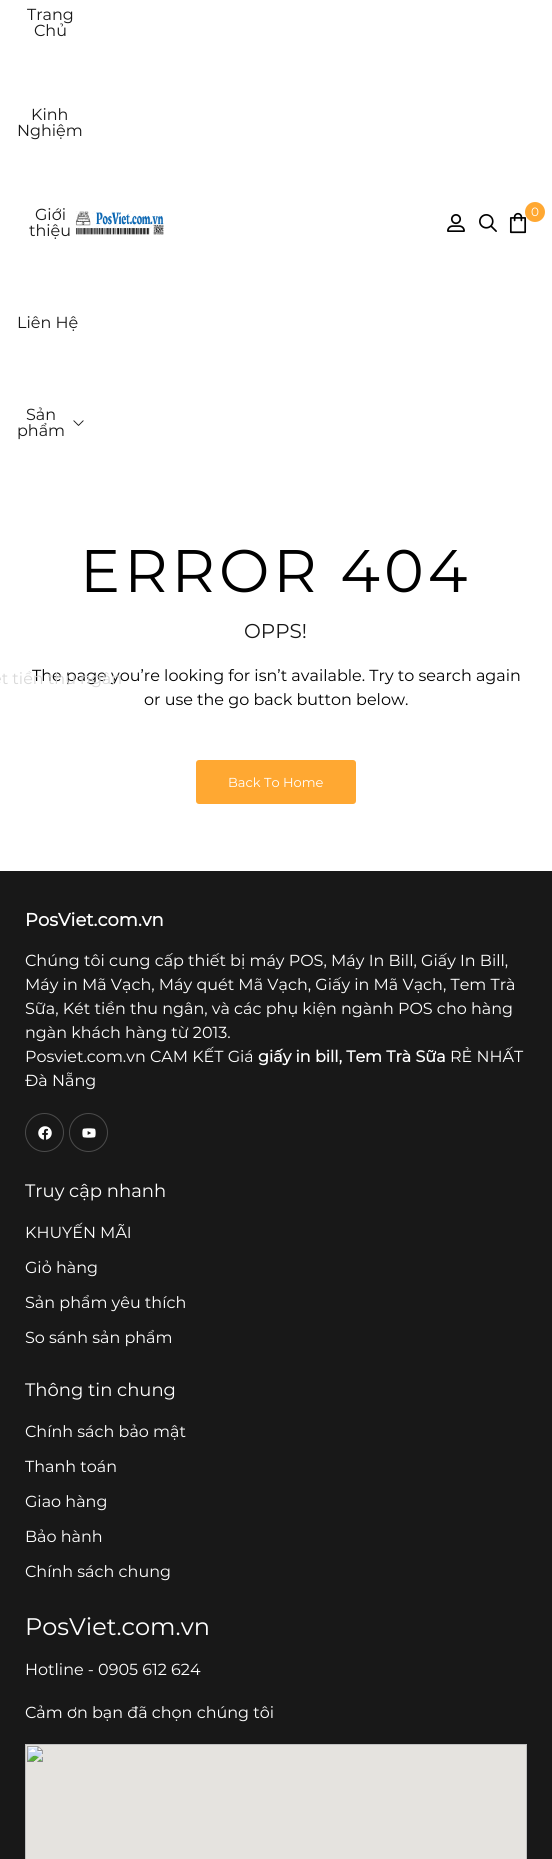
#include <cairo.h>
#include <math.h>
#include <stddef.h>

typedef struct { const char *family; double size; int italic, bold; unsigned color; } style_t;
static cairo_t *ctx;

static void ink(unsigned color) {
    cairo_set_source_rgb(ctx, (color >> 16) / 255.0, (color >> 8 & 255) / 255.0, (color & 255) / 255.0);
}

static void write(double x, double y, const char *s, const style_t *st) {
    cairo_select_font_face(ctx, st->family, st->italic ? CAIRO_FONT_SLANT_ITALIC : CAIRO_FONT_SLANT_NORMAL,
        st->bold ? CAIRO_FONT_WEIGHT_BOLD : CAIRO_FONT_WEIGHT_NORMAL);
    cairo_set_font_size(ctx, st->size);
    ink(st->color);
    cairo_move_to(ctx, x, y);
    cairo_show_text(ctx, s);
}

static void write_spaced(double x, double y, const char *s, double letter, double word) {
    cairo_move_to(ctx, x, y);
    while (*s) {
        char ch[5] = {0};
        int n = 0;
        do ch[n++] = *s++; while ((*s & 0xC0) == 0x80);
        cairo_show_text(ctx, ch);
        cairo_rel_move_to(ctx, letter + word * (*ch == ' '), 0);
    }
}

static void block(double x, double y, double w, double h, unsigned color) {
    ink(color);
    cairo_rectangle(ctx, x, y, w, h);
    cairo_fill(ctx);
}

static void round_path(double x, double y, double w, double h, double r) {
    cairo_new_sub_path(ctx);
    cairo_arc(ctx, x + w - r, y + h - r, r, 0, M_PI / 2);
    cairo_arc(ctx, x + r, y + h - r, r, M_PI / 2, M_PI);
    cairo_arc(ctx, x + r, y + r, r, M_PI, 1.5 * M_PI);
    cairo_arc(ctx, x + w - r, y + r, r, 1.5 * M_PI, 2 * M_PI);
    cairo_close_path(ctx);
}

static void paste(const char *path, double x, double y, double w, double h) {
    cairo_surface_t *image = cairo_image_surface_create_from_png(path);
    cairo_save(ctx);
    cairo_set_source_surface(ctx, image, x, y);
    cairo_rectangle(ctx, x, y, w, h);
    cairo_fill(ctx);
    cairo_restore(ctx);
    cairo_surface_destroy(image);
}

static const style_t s1 = {"Montserrat Thin", 16, 0, 0, 0x181818};
static const style_t s2 = {"Montserrat Thin", 16, 0, 0, 0x000000};
static const style_t s3 = {"Montserrat Thin", 16, 0, 0, 0xd8d8d8};
static const style_t s4 = {"Montserrat Thin", 12, 0, 0, 0xffffff};
static const style_t s5 = {"Montserrat Thin", 20, 0, 0, 0x181818};
static const style_t s6 = {"Montserrat Thin", 13, 0, 0, 0xffffff};
static const style_t s7 = {"Montserrat", 18, 0, 1, 0xffffff};
static const style_t s8 = {"Montserrat Thin", 16, 0, 0, 0xffffff};
static const style_t s9 = {"Montserrat", 16, 0, 1, 0xffffff};
static const style_t s10 = {"Montserrat Thin", 18, 0, 0, 0xffffff};
static const style_t s11 = {"Montserrat Thin", 24, 0, 0, 0xffffff};

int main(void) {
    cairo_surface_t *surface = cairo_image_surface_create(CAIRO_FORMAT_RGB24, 552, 1859);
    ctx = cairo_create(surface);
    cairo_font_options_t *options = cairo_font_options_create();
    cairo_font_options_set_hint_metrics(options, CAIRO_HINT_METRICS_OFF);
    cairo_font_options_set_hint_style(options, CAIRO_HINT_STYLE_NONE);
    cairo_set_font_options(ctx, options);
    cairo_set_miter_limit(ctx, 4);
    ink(0xffffff);
    cairo_paint(ctx);
    write(27, 20, "Trang", &s1);
    write(34, 36, "Chủ", &s1);
    write(31, 120, "Kinh", &s1);
    write(17, 136, "Nghiệm", &s1);
    write(35, 220, "Giới", &s1);
    write(29, 236, "thiệu", &s1);
    write(17, 328, "Liên Hệ", &s1);
    write(26, 420, "Sản", &s1);
    write(17, 436, "phẩm", &s1);
    paste("pic1.png", 73, 420, 11, 6);
    write(32, 681, "The page you’re looking for isn’t available. Try to search again", &s2);
    write(-8, 684, "ét tiền thu ngân", &s3);
    paste("pic2.png", 509, 212, 18, 22);
    ink(0xffa832);
    cairo_arc(ctx, 535, 212, 10, 0, 2 * M_PI);
    cairo_fill(ctx);
    write(531, 216, "0", &s4);
    paste("pic3.png", 447, 214, 18, 18);
    paste("pic4.png", 479, 214, 18, 18);
    paste("pic5.png", 75, 211, 89, 24);
    cairo_set_font_size(ctx, 60);
    ink(0x000000);
    write_spaced(80, 592, "ERROR 404", 4, 0);
    write(244, 638, "OPPS!", &s5);
    write(144, 705, "or use the go back button below.", &s2);
    ink(0xffa832);
    round_path(196, 760, 160, 44, 3);
    cairo_fill(ctx);
    write(228, 787, "Back To Home", &s6);
    block(0, 871, 552, 988, 0x181818);
    write(25, 926, "PosViet.com.vn", &s7);
    write(25, 966, "Chúng tôi cung cấp thiết bị máy POS, Máy In Bill, Giấy In Bill,", &s8);
    write(25, 990, "Máy in Mã Vạch, Máy quét Mã Vạch, Giấy in Mã Vạch, Tem Trà", &s8);
    write(25, 1014, "Sữa, Két tiền thu ngân, và các phụ kiện ngành POS cho hàng", &s8);
    write(25, 1038, "ngàn khách hàng từ 2013.", &s8);
    write(25, 1062, "Posviet.com.vn CAM KẾT Giá", &s8);
    write(258, 1062, "giấy in bill, Tem Trà Sữa", &s9);
    write(450, 1062, "RẺ NHẤT", &s8);
    write(25, 1086, "Đà Nẵng", &s8);
    cairo_new_path(ctx);
    cairo_arc(ctx, 44.5, 1132.5, 19, 0, 2 * M_PI);
    ink(0x4b4b4b);
    cairo_set_line_width(ctx, 1);
    cairo_stroke(ctx);
    paste("pic6.png", 38, 1126, 14, 14);
    cairo_arc(ctx, 88.5, 1132.5, 19, 0, 2 * M_PI);
    cairo_stroke(ctx);
    paste("pic7.png", 82, 1128, 14, 10);
    write(25, 1197, "Truy cập nhanh", &s10);
    write(25, 1238, "KHUYẾN MÃI", &s8);
    write(25, 1273, "Giỏ hàng", &s8);
    write(25, 1308, "Sản phẩm yêu thích", &s8);
    write(25, 1343, "So sánh sản phẩm", &s8);
    write(25, 1396, "Thông tin chung", &s10);
    write(25, 1437, "Chính sách bảo mật", &s8);
    write(25, 1472, "Thanh toán", &s8);
    write(25, 1507, "Giao hàng", &s8);
    write(25, 1542, "Bảo hành", &s8);
    write(25, 1577, "Chính sách chung", &s8);
    write(25, 1635, "PosViet.com.vn", &s11);
    write(25, 1675, "Hotline - 0905 612 624", &s8);
    write(25, 1718, "Cảm ơn bạn đã chọn chúng tôi", &s8);
    paste("pic8.png", 25, 1744, 502, 115);
    cairo_surface_write_to_png(surface, "screenshot.png");
    cairo_font_options_destroy(options);
    cairo_destroy(ctx);
    cairo_surface_destroy(surface);
    return 0;
}
